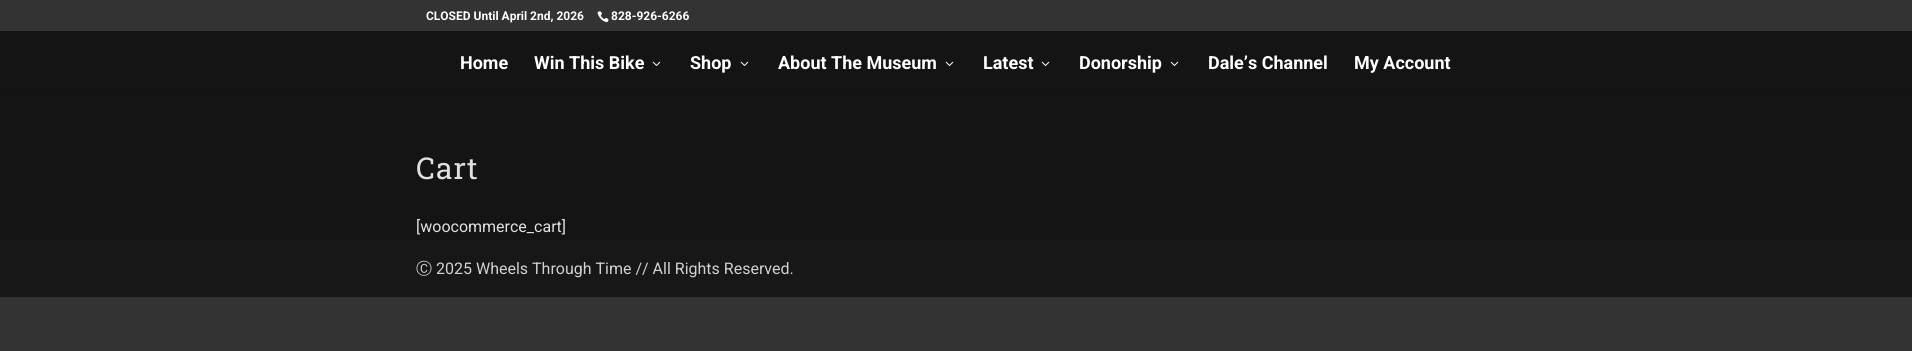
#include <cairo.h>
#include <math.h>
#include <stddef.h>

typedef struct { const char *family; double size; int italic, bold; unsigned color; } style_t;
static cairo_t *ctx;

static void ink(unsigned color) {
    cairo_set_source_rgb(ctx, (color >> 16) / 255.0, (color >> 8 & 255) / 255.0, (color & 255) / 255.0);
}

static void write(double x, double y, const char *s, const style_t *st) {
    cairo_select_font_face(ctx, st->family, st->italic ? CAIRO_FONT_SLANT_ITALIC : CAIRO_FONT_SLANT_NORMAL,
        st->bold ? CAIRO_FONT_WEIGHT_BOLD : CAIRO_FONT_WEIGHT_NORMAL);
    cairo_set_font_size(ctx, st->size);
    ink(st->color);
    cairo_move_to(ctx, x, y);
    cairo_show_text(ctx, s);
}

static void write_spaced(double x, double y, const char *s, double letter, double word) {
    cairo_move_to(ctx, x, y);
    while (*s) {
        char ch[5] = {0};
        int n = 0;
        do ch[n++] = *s++; while ((*s & 0xC0) == 0x80);
        cairo_show_text(ctx, ch);
        cairo_rel_move_to(ctx, letter + word * (*ch == ' '), 0);
    }
}

static void block(double x, double y, double w, double h, unsigned color) {
    ink(color);
    cairo_rectangle(ctx, x, y, w, h);
    cairo_fill(ctx);
}

static void paste(const char *path, double x, double y, double w, double h) {
    cairo_surface_t *image = cairo_image_surface_create_from_png(path);
    cairo_save(ctx);
    cairo_set_source_surface(ctx, image, x, y);
    cairo_rectangle(ctx, x, y, w, h);
    cairo_fill(ctx);
    cairo_restore(ctx);
    cairo_surface_destroy(image);
}

static const style_t s1 = {"Roboto", 12, 0, 1, 0xffffff};
static const style_t s2 = {"Roboto", 18, 0, 1, 0xffffff};
static const style_t s3 = {"Roboto", 16, 0, 0, 0xe1e0e0};
static const style_t s4 = {"WenQuanYi Zen Hei Medium", 16, 0, 0, 0xd1d1d1};
static const style_t s5 = {"Roboto", 16, 0, 0, 0xd1d1d1};

int main(void) {
    cairo_surface_t *surface = cairo_image_surface_create(CAIRO_FORMAT_RGB24, 1912, 351);
    ctx = cairo_create(surface);
    cairo_font_options_t *options = cairo_font_options_create();
    cairo_font_options_set_hint_metrics(options, CAIRO_HINT_METRICS_OFF);
    cairo_font_options_set_hint_style(options, CAIRO_HINT_STYLE_NONE);
    cairo_set_font_options(ctx, options);
    cairo_set_miter_limit(ctx, 4);
    ink(0x333333);
    cairo_paint(ctx);
    write(426, 20, "CLOSED Until April 2nd, 2026", &s1);
    paste("pic1.png", 597, 11, 12, 12);
    write(611, 20, "828-926-6266", &s1);
    block(0, 95, 1912, 1, 0x121212);
    block(0, 31, 1912, 64, 0x141414);
    write(460, 69, "Home", &s2);
    write(534, 69, "Win This Bike", &s2);
    paste("pic2.png", 652, 61, 9, 5);
    write(690, 69, "Shop", &s2);
    paste("pic2.png", 740, 61, 9, 5);
    write(778, 69, "About The Museum", &s2);
    paste("pic2.png", 945, 61, 9, 5);
    write(983, 69, "Latest", &s2);
    paste("pic2.png", 1041, 61, 9, 5);
    write(1079, 69, "Donorship", &s2);
    paste("pic2.png", 1170, 61, 9, 5);
    write(1208, 69, "Dale’s Channel", &s2);
    write(1354, 69, "My Account", &s2);
    block(0, 96, 1912, 144, 0x141414);
    cairo_select_font_face(ctx, "Roboto Slab", CAIRO_FONT_SLANT_NORMAL, CAIRO_FONT_WEIGHT_NORMAL);
    cairo_set_font_size(ctx, 30);
    ink(0xe1e0e0);
    write_spaced(416, 179, "Cart", 1, 0);
    write(416, 232, "[woocommerce_cart]", &s3);
    block(0, 240, 1912, 57, 0x171717);
    write(416, 274, "Ⓒ", &s4);
    write(436, 274, "2025 Wheels Through Time // All Rights Reserved.", &s5);
    cairo_surface_write_to_png(surface, "screenshot.png");
    cairo_font_options_destroy(options);
    cairo_destroy(ctx);
    cairo_surface_destroy(surface);
    return 0;
}
